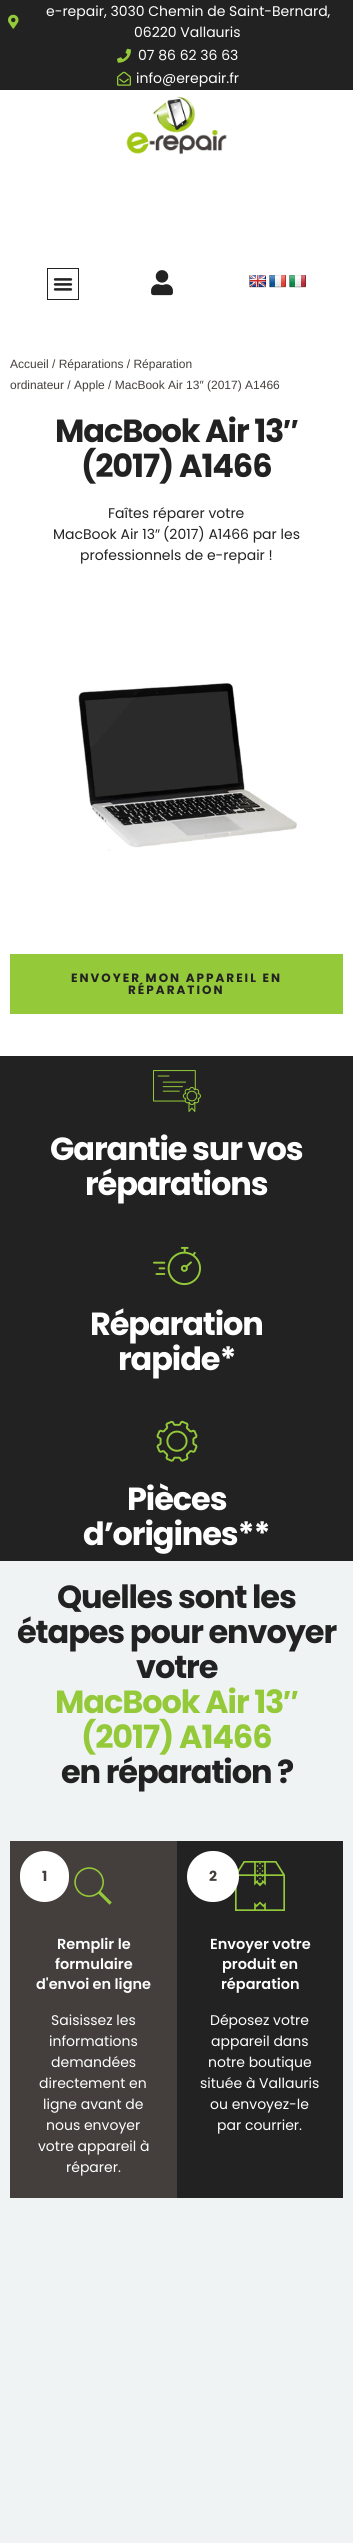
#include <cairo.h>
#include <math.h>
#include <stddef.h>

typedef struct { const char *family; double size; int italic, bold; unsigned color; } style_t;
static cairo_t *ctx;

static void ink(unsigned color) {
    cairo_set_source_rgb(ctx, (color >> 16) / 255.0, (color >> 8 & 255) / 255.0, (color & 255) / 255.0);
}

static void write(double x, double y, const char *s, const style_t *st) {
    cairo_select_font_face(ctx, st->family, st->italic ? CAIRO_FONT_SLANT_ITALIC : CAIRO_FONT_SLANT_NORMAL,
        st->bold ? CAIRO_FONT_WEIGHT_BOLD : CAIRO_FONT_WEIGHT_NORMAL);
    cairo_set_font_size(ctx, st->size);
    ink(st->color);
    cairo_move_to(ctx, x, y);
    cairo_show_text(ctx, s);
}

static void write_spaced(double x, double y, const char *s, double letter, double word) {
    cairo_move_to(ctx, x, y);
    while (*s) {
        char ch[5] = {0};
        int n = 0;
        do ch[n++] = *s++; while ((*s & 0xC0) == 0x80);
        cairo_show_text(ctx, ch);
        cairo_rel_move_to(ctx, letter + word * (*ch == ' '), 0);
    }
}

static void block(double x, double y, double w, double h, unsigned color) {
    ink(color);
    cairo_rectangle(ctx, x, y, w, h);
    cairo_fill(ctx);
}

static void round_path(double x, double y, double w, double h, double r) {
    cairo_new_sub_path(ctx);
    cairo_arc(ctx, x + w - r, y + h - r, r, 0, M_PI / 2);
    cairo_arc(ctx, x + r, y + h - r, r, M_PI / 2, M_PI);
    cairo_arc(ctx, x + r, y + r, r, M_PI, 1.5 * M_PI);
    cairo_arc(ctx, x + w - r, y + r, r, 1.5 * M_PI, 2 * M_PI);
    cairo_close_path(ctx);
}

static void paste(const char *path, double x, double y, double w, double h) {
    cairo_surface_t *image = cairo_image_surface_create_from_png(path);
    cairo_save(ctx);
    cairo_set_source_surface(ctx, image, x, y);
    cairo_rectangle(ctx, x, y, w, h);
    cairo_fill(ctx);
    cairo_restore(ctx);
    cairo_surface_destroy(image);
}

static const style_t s1 = {"Poppins", 14, 0, 0, 0xffffff};
static const style_t s2 = {"Liberation Sans", 12, 0, 0, 0x443f3c};
static const style_t s3 = {"Poppins", 14, 0, 0, 0x222222};
static const style_t s4 = {"Liberation Sans", 14, 0, 0, 0x222222};
static const style_t s5 = {"Poppins", 14, 0, 1, 0x443f3c};
static const style_t s6 = {"Poppins SemiBold", 14.5, 0, 0, 0xffffff};

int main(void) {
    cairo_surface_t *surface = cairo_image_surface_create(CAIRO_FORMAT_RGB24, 353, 2543);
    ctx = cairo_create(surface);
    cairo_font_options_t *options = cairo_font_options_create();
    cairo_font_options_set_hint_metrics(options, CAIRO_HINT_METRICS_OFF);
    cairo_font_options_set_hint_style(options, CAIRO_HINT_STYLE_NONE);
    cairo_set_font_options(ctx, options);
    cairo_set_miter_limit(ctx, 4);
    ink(0xffffff);
    cairo_paint(ctx);
    block(0, 0, 353, 90, 0x222222);
    paste("pic1.png", 8, 14, 11, 15);
    write(46, 16, "e-repair, 3030 Chemin de Saint-Bernard,", &s1);
    write(134, 37, "06220 Vallauris", &s1);
    paste("pic2.png", 117, 48, 14, 15);
    write(138, 60, "07 86 62 36 63", &s1);
    paste("pic3.png", 117, 71, 14, 15);
    write(136, 83, "info@erepair.fr", &s1);
    paste("pic4.png", 126, 96, 101, 59);
    cairo_rectangle(ctx, 47.5, 268.5, 31, 31);
    ink(0x222222);
    cairo_set_line_width(ctx, 1);
    cairo_stroke(ctx);
    paste("pic5.png", 53, 278, 20, 13);
    paste("pic6.png", 151, 270, 22, 26);
    paste("pic7.png", 249, 275, 17, 13);
    paste("pic8.png", 269, 275, 17, 13);
    paste("pic9.png", 289, 275, 17, 13);
    write(10, 368, "Accueil / Réparations / Réparation", &s2);
    write(10, 389, "ordinateur / Apple / MacBook Air 13″ (2017) A1466", &s2);
    cairo_select_font_face(ctx, "Poppins", CAIRO_FONT_SLANT_NORMAL, CAIRO_FONT_WEIGHT_BOLD);
    cairo_set_font_size(ctx, 32);
    ink(0x222222);
    write_spaced(55, 442, "MacBook Air 13", -1.1, 0);
    cairo_select_font_face(ctx, "Liberation Sans", CAIRO_FONT_SLANT_NORMAL, CAIRO_FONT_WEIGHT_BOLD);
    write_spaced(283, 442, "″", -1.1, 0);
    cairo_select_font_face(ctx, "Poppins", CAIRO_FONT_SLANT_NORMAL, CAIRO_FONT_WEIGHT_BOLD);
    write_spaced(81, 477, "(2017) A1466", -1.1, 0);
    write(108, 518, "Faîtes réparer votre", &s3);
    write(53, 539, "MacBook Air 13", &s3);
    write(155, 539, "″", &s4);
    write(163, 539, "(2017) A1466 par les", &s3);
    write(80, 560, "professionnels de e-repair !", &s3);
    paste("pic10.png", 78, 682, 219, 169);
    block(10, 954, 333, 60, 0x94c939);
    cairo_select_font_face(ctx, "Poppins", CAIRO_FONT_SLANT_NORMAL, CAIRO_FONT_WEIGHT_BOLD);
    cairo_set_font_size(ctx, 12);
    ink(0x222222);
    write_spaced(71, 982, "ENVOYER MON APPAREIL EN", 2, 0);
    write_spaced(128, 994, "RÉPARATION", 2, 0);
    block(0, 1056, 353, 505, 0x222222);
    paste("pic11.png", 153, 1070, 48, 42);
    cairo_set_font_size(ctx, 32);
    ink(0xffffff);
    write_spaced(50, 1160, "Garantie sur vos", -1.1, 0);
    write_spaced(85, 1195, "réparations", -1.1, 0);
    paste("pic12.png", 153, 1246, 48, 40);
    write_spaced(90, 1335, "Réparation", -1.1, 0);
    write_spaced(118, 1370, "rapide*", -1.1, 0);
    paste("pic13.png", 156, 1420, 42, 42);
    write_spaced(127, 1510, "Pièces", -1.1, 0);
    write_spaced(83, 1545, "d’origines**", -1.1, 0);
    block(0, 1561, 353, 982, 0xeff3f3);
    ink(0x222222);
    write_spaced(57, 1608, "Quelles sont les", -1.1, 0);
    write_spaced(17, 1643, "étapes pour envoyer", -1.1, 0);
    write_spaced(136, 1678, "votre", -1.1, 0);
    ink(0x94c939);
    write_spaced(55, 1713, "MacBook Air 13", -1.1, 0);
    cairo_select_font_face(ctx, "Liberation Sans", CAIRO_FONT_SLANT_NORMAL, CAIRO_FONT_WEIGHT_BOLD);
    write_spaced(283, 1713, "″", -1.1, 0);
    cairo_select_font_face(ctx, "Poppins", CAIRO_FONT_SLANT_NORMAL, CAIRO_FONT_WEIGHT_BOLD);
    write_spaced(81, 1748, "(2017) A1466", -1.1, 0);
    ink(0x222222);
    write_spaced(61, 1783, "en réparation ?", -1.1, 0);
    block(10, 1841, 167, 357, 0x443f3c);
    ink(0xffffff);
    round_path(20, 1851, 49, 51, 24.5);
    cairo_fill(ctx);
    write(42, 1881, "1", &s5);
    paste("pic14.png", 74, 1867, 38, 38);
    write(57, 1949, "Remplir le", &s6);
    write(55, 1969, "formulaire", &s6);
    write(36, 1989, "d'envoi en ligne", &s6);
    write(51, 2025, "Saisissez les", &s1);
    write(49, 2046, "informations", &s1);
    write(51, 2067, "demandées", &s1);
    write(39, 2088, "directement en", &s1);
    write(43, 2109, "ligne avant de", &s1);
    write(46, 2130, "nous envoyer", &s1);
    write(38, 2151, "votre appareil à", &s1);
    write(66, 2172, "réparer.", &s1);
    block(177, 1841, 166, 357, 0x222222);
    paste("pic15.png", 235, 1861, 50, 50);
    ink(0xffffff);
    round_path(187, 1851, 52, 51, 25.5);
    cairo_fill(ctx);
    write(209, 1881, "2", &s5);
    write(210, 1949, "Envoyer votre", &s6);
    write(222, 1969, "produit en", &s6);
    write(221, 1989, "réparation", &s6);
    write(210, 2025, "Déposez votre", &s1);
    write(211, 2046, "appareil dans", &s1);
    write(208, 2067, "notre boutique", &s1);
    write(200, 2088, "située à Vallauris", &s1);
    write(210, 2109, "ou envoyez-le", &s1);
    write(217, 2130, "par courrier.", &s1);
    cairo_surface_write_to_png(surface, "screenshot.png");
    cairo_font_options_destroy(options);
    cairo_destroy(ctx);
    cairo_surface_destroy(surface);
    return 0;
}
